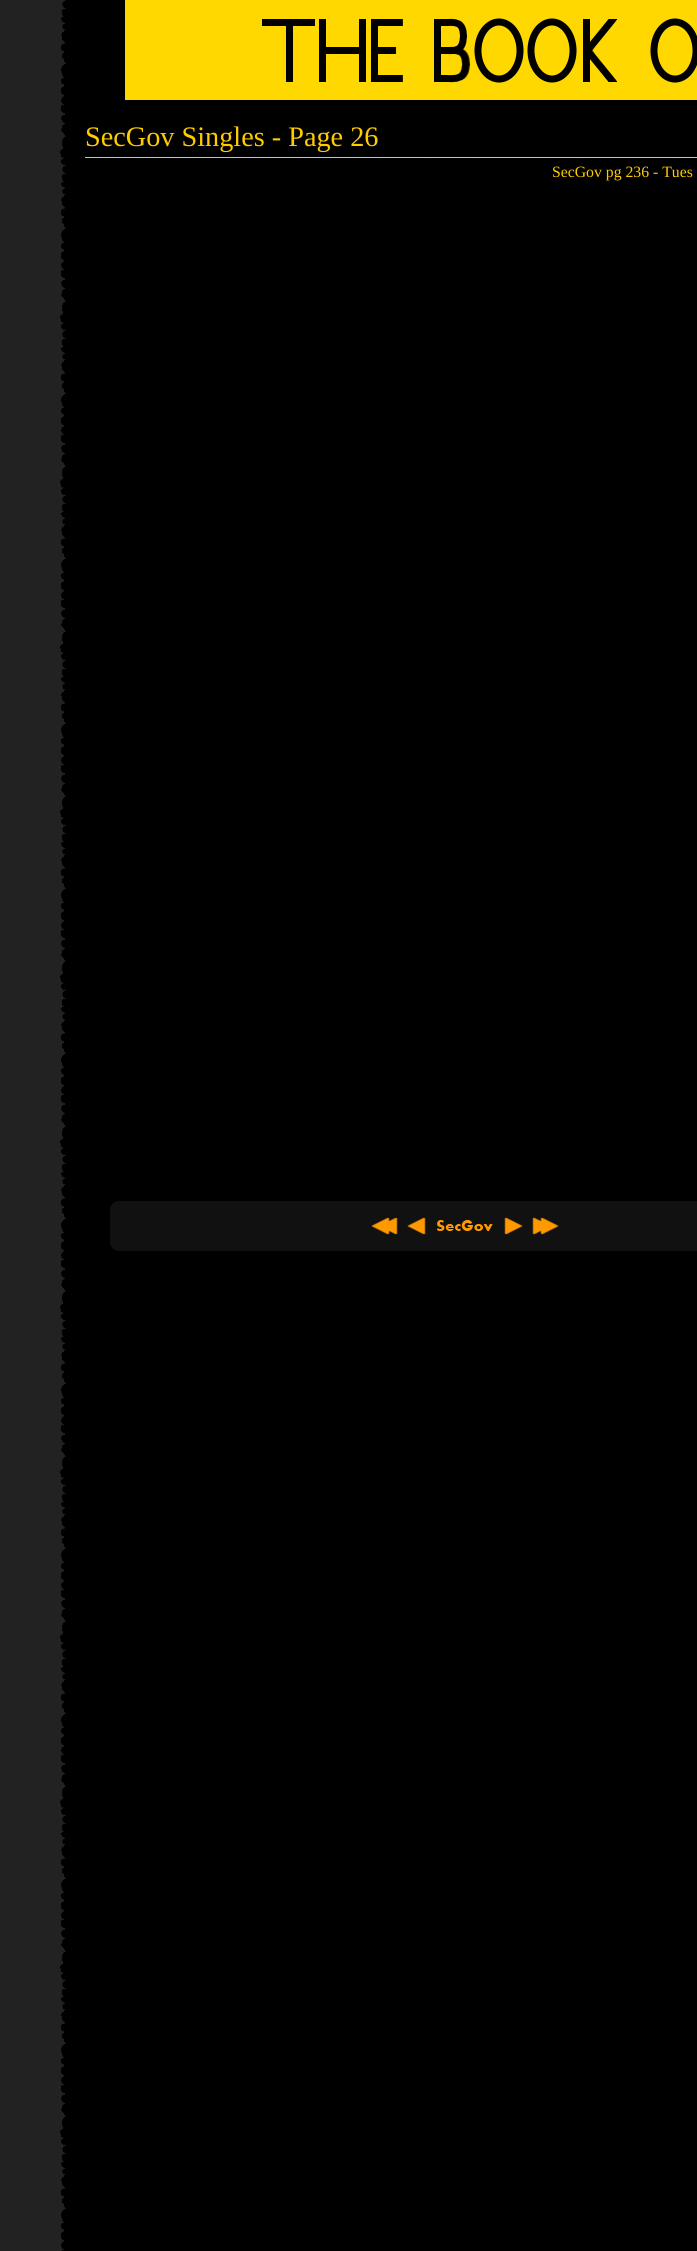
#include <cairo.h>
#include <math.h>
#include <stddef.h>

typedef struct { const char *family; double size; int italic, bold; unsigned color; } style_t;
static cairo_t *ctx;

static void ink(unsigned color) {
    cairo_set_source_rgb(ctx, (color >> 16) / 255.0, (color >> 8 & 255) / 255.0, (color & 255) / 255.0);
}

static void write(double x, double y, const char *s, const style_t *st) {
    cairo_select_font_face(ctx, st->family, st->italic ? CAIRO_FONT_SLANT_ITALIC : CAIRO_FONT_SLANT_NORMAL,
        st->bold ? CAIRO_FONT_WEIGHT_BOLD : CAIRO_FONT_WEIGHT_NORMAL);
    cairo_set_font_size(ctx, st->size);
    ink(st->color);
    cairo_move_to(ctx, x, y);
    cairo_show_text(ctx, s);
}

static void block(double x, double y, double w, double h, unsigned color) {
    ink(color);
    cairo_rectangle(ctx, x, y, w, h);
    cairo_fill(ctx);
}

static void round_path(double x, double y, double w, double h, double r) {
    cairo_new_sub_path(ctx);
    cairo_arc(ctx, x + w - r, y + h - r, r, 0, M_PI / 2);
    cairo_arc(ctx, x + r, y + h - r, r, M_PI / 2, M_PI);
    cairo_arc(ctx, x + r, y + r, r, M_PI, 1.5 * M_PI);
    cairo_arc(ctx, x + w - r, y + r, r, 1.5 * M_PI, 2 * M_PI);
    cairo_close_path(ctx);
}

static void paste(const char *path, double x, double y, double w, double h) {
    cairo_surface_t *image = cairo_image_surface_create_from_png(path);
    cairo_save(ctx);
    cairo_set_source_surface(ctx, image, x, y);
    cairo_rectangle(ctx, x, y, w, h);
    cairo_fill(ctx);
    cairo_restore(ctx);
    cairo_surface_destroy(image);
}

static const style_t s1 = {"Liberation Serif", 28.25, 0, 0, 0xffcc00};
static const style_t s2 = {"Liberation Serif", 15.75, 0, 0, 0xffcc00};

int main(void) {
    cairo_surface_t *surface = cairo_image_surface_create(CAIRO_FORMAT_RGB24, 697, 2251);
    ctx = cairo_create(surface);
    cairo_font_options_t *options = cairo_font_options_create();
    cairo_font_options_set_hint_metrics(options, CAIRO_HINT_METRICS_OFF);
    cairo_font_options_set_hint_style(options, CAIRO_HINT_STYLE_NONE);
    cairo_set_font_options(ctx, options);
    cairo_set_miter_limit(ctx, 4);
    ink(0x222222);
    cairo_paint(ctx);
    paste("pic1.png", 60, 0, 637, 2251);
    paste("pic2.png", 125, 0, 572, 100);
    block(85, 157, 612, 1, 0xffcc00);
    write(85, 146, "SecGov Singles - Page 26", &s1);
    write(552, 177, "SecGov pg 236 - Tues", &s2);
    ink(0x111111);
    round_path(110, 1201, 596, 50, 9);
    cairo_fill(ctx);
    paste("pic3.png", 371, 1217, 188, 18);
    cairo_surface_write_to_png(surface, "screenshot.png");
    cairo_font_options_destroy(options);
    cairo_destroy(ctx);
    cairo_surface_destroy(surface);
    return 0;
}
